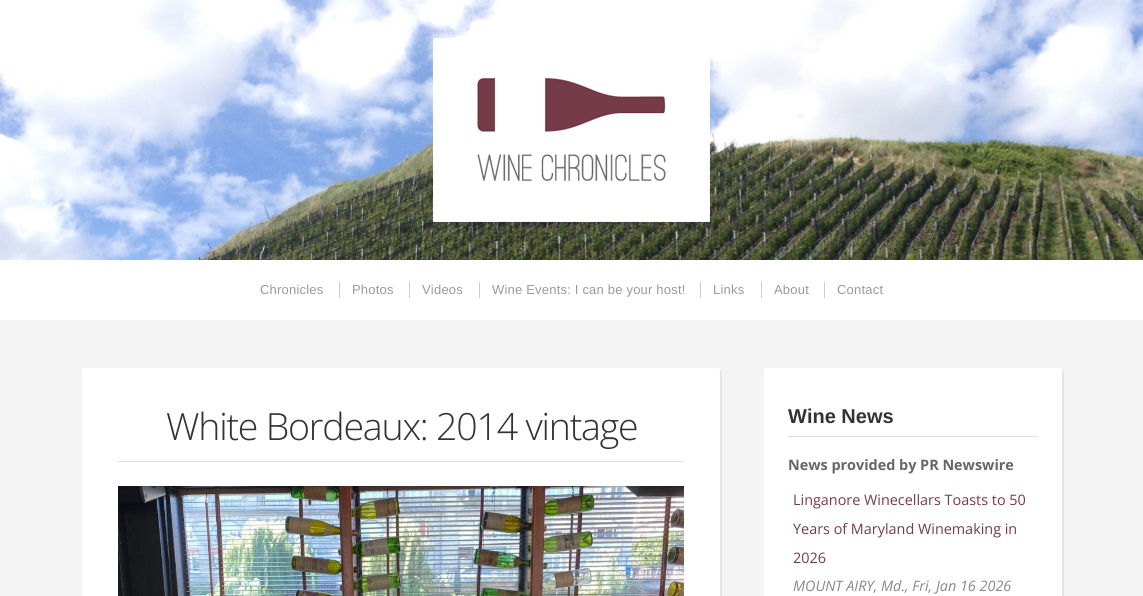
#include <cairo.h>
#include <math.h>
#include <stddef.h>

typedef struct { const char *family; double size; int italic, bold; unsigned color; } style_t;
static cairo_t *ctx;

static void ink(unsigned color) {
    cairo_set_source_rgb(ctx, (color >> 16) / 255.0, (color >> 8 & 255) / 255.0, (color & 255) / 255.0);
}

static void write(double x, double y, const char *s, const style_t *st) {
    cairo_select_font_face(ctx, st->family, st->italic ? CAIRO_FONT_SLANT_ITALIC : CAIRO_FONT_SLANT_NORMAL,
        st->bold ? CAIRO_FONT_WEIGHT_BOLD : CAIRO_FONT_WEIGHT_NORMAL);
    cairo_set_font_size(ctx, st->size);
    ink(st->color);
    cairo_move_to(ctx, x, y);
    cairo_show_text(ctx, s);
}

static void write_spaced(double x, double y, const char *s, double letter, double word) {
    cairo_move_to(ctx, x, y);
    while (*s) {
        char ch[5] = {0};
        int n = 0;
        do ch[n++] = *s++; while ((*s & 0xC0) == 0x80);
        cairo_show_text(ctx, ch);
        cairo_rel_move_to(ctx, letter + word * (*ch == ' '), 0);
    }
}

static void block(double x, double y, double w, double h, unsigned color) {
    ink(color);
    cairo_rectangle(ctx, x, y, w, h);
    cairo_fill(ctx);
}

static void round_path(double x, double y, double w, double h, double r) {
    cairo_new_sub_path(ctx);
    cairo_arc(ctx, x + w - r, y + h - r, r, 0, M_PI / 2);
    cairo_arc(ctx, x + r, y + h - r, r, M_PI / 2, M_PI);
    cairo_arc(ctx, x + r, y + r, r, M_PI, 1.5 * M_PI);
    cairo_arc(ctx, x + w - r, y + r, r, 1.5 * M_PI, 2 * M_PI);
    cairo_close_path(ctx);
}

static void paste(const char *path, double x, double y, double w, double h) {
    cairo_surface_t *image = cairo_image_surface_create_from_png(path);
    cairo_save(ctx);
    cairo_set_source_surface(ctx, image, x, y);
    cairo_rectangle(ctx, x, y, w, h);
    cairo_fill(ctx);
    cairo_restore(ctx);
    cairo_surface_destroy(image);
}

static const style_t s1 = {"Liberation Sans", 20, 0, 1, 0x333333};
static const style_t s2 = {"Open Sans", 14.4, 0, 1, 0x666666};
static const style_t s3 = {"Open Sans", 14.4, 0, 0, 0x763b49};
static const style_t s4 = {"Open Sans", 14.4, 1, 0, 0x888888};

int main(void) {
    cairo_surface_t *surface = cairo_image_surface_create(CAIRO_FORMAT_RGB24, 1143, 596);
    ctx = cairo_create(surface);
    cairo_font_options_t *options = cairo_font_options_create();
    cairo_font_options_set_hint_metrics(options, CAIRO_HINT_METRICS_OFF);
    cairo_font_options_set_hint_style(options, CAIRO_HINT_STYLE_NONE);
    cairo_set_font_options(ctx, options);
    cairo_set_miter_limit(ctx, 4);
    ink(0xffffff);
    cairo_paint(ctx);
    paste("pic1.png", 0, 0, 1143, 260);
    paste("pic2.png", 433, 38, 277, 184);
    cairo_select_font_face(ctx, "Liberation Sans", CAIRO_FONT_SLANT_NORMAL, CAIRO_FONT_WEIGHT_NORMAL);
    cairo_set_font_size(ctx, 13);
    ink(0x999999);
    write_spaced(260, 294, "Chronicles", 0.2, 0);
    block(339, 282, 1, 16, 0xcccccc);
    ink(0x999999);
    write_spaced(352, 294, "Photos", 0.2, 0);
    block(409, 282, 1, 16, 0xcccccc);
    ink(0x999999);
    write_spaced(422, 294, "Videos", 0.2, 0);
    block(479, 282, 1, 16, 0xcccccc);
    ink(0x999999);
    write_spaced(492, 294, "Wine Events: I can be your host!", 0.2, 0);
    block(700, 282, 1, 16, 0xcccccc);
    ink(0x999999);
    write_spaced(713, 294, "Links", 0.2, 0);
    block(761, 282, 1, 16, 0xcccccc);
    ink(0x999999);
    write_spaced(774, 294, "About", 0.2, 0);
    block(824, 282, 1, 16, 0xcccccc);
    ink(0x999999);
    write_spaced(837, 294, "Contact", 0.2, 0);
    block(0, 320, 1143, 276, 0xf4f4f4);
    ink(0xe5e5e5);
    cairo_new_path(ctx);
    cairo_move_to(ctx, 84, 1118);
    cairo_curve_to(ctx, 85, 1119, 86, 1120, 87, 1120);
    cairo_line_to(ctx, 719, 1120);
    cairo_curve_to(ctx, 721, 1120, 722, 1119, 722, 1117);
    cairo_line_to(ctx, 722, 373);
    cairo_curve_to(ctx, 722, 372, 721, 371, 720, 370);
    cairo_line_to(ctx, 720, 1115);
    cairo_curve_to(ctx, 720, 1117, 719, 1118, 717, 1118);
    cairo_close_path(ctx);
    cairo_fill(ctx);
    ink(0xffffff);
    round_path(82, 368, 638, 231, 3);
    cairo_fill(ctx);
    block(118, 461, 566, 1, 0xe0e0e0);
    cairo_select_font_face(ctx, "Open Sans Light", CAIRO_FONT_SLANT_NORMAL, CAIRO_FONT_WEIGHT_NORMAL);
    cairo_set_font_size(ctx, 37.5);
    ink(0x333333);
    write_spaced(166, 440, "White Bordeaux: 2014 vintage", -1.2, 0);
    paste("pic3.png", 118, 486, 566, 110);
    ink(0xe5e5e5);
    cairo_new_path(ctx);
    cairo_move_to(ctx, 766, 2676);
    cairo_curve_to(ctx, 767, 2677, 768, 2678, 769, 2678);
    cairo_line_to(ctx, 1061, 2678);
    cairo_curve_to(ctx, 1063, 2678, 1064, 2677, 1064, 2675);
    cairo_line_to(ctx, 1064, 373);
    cairo_curve_to(ctx, 1064, 372, 1063, 371, 1062, 370);
    cairo_line_to(ctx, 1062, 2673);
    cairo_curve_to(ctx, 1062, 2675, 1061, 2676, 1059, 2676);
    cairo_close_path(ctx);
    cairo_fill(ctx);
    ink(0xffffff);
    round_path(764, 368, 298, 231, 3);
    cairo_fill(ctx);
    block(788, 436, 250, 1, 0xe0e0e0);
    write(788, 423, "Wine News", &s1);
    write(788, 470, "News provided by PR Newswire", &s2);
    write(793, 505, "Linganore Winecellars Toasts to 50", &s3);
    write(793, 534, "Years of Maryland Winemaking in", &s3);
    write(793, 563, "2026", &s3);
    write(793, 591, "MOUNT AIRY, Md., Fri, Jan 16 2026", &s4);
    cairo_surface_write_to_png(surface, "screenshot.png");
    cairo_font_options_destroy(options);
    cairo_destroy(ctx);
    cairo_surface_destroy(surface);
    return 0;
}
